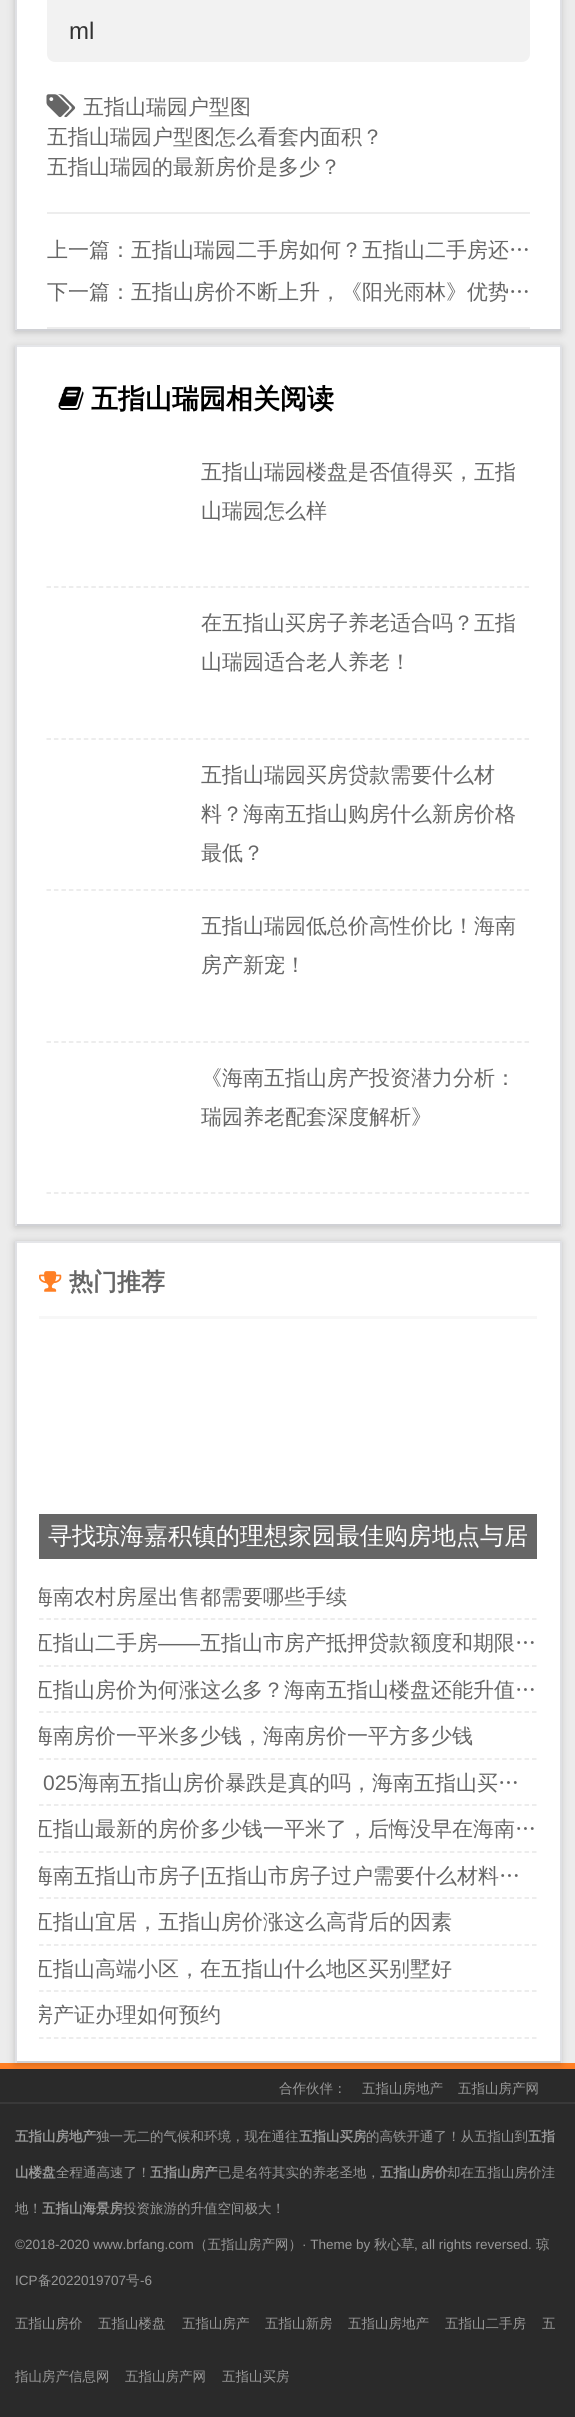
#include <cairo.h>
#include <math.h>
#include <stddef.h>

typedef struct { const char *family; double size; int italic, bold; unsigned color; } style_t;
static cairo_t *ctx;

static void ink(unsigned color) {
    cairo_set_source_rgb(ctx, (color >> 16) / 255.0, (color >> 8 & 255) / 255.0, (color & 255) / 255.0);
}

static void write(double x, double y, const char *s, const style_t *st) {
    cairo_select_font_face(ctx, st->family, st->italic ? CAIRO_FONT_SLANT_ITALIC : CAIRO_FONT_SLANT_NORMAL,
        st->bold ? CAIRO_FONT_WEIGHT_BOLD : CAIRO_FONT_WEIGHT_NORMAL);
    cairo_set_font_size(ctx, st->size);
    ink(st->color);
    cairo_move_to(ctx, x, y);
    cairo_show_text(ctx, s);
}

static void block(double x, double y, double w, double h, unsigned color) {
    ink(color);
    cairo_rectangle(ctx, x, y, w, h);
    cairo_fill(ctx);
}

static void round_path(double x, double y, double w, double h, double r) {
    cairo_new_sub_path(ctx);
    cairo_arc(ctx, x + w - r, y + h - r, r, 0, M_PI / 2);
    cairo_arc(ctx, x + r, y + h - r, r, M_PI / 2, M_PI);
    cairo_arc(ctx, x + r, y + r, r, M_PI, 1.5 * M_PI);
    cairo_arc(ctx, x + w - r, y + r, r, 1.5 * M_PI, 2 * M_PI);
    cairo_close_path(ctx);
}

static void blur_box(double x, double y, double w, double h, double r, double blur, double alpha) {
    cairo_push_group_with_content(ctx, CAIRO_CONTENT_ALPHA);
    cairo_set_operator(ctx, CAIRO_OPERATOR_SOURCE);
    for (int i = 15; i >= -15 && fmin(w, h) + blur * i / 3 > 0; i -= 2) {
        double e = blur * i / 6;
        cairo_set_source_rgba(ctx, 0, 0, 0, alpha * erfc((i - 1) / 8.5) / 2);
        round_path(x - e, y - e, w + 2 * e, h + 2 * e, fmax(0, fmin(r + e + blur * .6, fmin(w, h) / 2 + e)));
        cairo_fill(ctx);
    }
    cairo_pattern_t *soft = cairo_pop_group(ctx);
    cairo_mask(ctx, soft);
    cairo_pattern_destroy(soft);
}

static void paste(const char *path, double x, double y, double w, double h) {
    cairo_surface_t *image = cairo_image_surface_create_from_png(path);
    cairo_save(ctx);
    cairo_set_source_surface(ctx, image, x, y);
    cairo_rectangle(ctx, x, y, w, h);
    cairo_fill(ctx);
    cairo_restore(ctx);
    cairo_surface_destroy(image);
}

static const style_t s1 = {"Liberation Sans", 24, 0, 0, 0x333333};
static const style_t s2 = {"WenQuanYi Zen Hei Medium", 21, 0, 0, 0x666666};
static const style_t s3 = {"WenQuanYi Zen Hei", 27, 0, 1, 0x000000};
static const style_t s4 = {"WenQuanYi Zen Hei", 24, 0, 1, 0x666666};
static const style_t s5 = {"WenQuanYi Zen Hei Medium", 24, 0, 0, 0xffffff};
static const style_t s6 = {"Liberation Sans", 21, 0, 0, 0x666666};
static const style_t s7 = {"WenQuanYi Zen Hei Medium", 13.5, 0, 0, 0x999999};
static const style_t s8 = {"WenQuanYi Zen Hei", 13.5, 0, 1, 0x999999};
static const style_t s9 = {"Liberation Sans", 13.5, 0, 0, 0x999999};

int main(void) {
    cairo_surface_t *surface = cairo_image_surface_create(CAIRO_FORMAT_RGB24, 575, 2417);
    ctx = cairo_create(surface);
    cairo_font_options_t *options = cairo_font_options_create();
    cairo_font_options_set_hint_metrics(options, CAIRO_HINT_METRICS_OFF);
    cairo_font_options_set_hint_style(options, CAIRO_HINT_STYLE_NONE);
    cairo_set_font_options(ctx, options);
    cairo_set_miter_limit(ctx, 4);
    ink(0xececec);
    cairo_paint(ctx);
    ink(0x000000);
    blur_box(15, -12, 546, 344, 0, 4, 0.2);
    block(17, 0, 543, 329, 0xffffff);
    block(560, 0, 2, 330, 0xdfe0e4);
    block(15, 329, 546, 2, 0xd0d1d5);
    block(15, 0, 2, 330, 0xdfe0e4);
    ink(0xf2f2f2);
    round_path(47, -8, 483, 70, 8);
    cairo_fill(ctx);
    write(69, 39, "ml", &s1);
    paste("pic1.png", 46, 94, 30, 24);
    write(83, 114, "五指山瑞园户型图", &s2);
    write(47, 144, "五指山瑞园户型图怎么看套内面积？", &s2);
    write(47, 174, "五指山瑞园的最新房价是多少？", &s2);
    block(47, 212, 483, 2, 0xededed);
    block(47, 327, 483, 2, 0xededed);
    write(47, 257, "上一篇：五指山瑞园二手房如何？五指山二手房还…", &s2);
    write(47, 299, "下一篇：五指山房价不断上升，《阳光雨林》优势…", &s2);
    ink(0x000000);
    blur_box(15, 347, 546, 880, 0, 4, 0.2);
    block(17, 347, 543, 877, 0xffffff);
    block(15, 345, 546, 2, 0xe5e6e9);
    block(560, 345, 2, 881, 0xdfe0e4);
    block(15, 1224, 546, 2, 0xd0d1d5);
    block(15, 345, 2, 881, 0xdfe0e4);
    paste("pic2.png", 58, 386, 26, 24);
    write(91, 408, "五指山瑞园相关阅读", &s3);
    cairo_new_path(ctx);
    cairo_move_to(ctx, 46.5, 587);
    cairo_line_to(ctx, 529.5, 587);
    ink(0xe7e7e7);
    cairo_set_line_width(ctx, 1.5);
    cairo_set_dash(ctx, (double[]){4.5, 2.97}, 2, 0);
    cairo_stroke(ctx);
    write(201, 479, "五指山瑞园楼盘是否值得买，五指", &s2);
    write(201, 518, "山瑞园怎么样", &s2);
    cairo_new_path(ctx);
    cairo_move_to(ctx, 46.5, 739);
    cairo_line_to(ctx, 529.5, 739);
    ink(0xe7e7e7);
    cairo_stroke(ctx);
    write(201, 630, "在五指山买房子养老适合吗？五指", &s2);
    write(201, 669, "山瑞园适合老人养老！", &s2);
    cairo_new_path(ctx);
    cairo_move_to(ctx, 46.5, 890);
    cairo_line_to(ctx, 529.5, 890);
    ink(0xe7e7e7);
    cairo_stroke(ctx);
    write(201, 782, "五指山瑞园买房贷款需要什么材", &s2);
    write(201, 821, "料？海南五指山购房什么新房价格", &s2);
    write(201, 860, "最低？", &s2);
    cairo_new_path(ctx);
    cairo_move_to(ctx, 46.5, 1042);
    cairo_line_to(ctx, 529.5, 1042);
    ink(0xe7e7e7);
    cairo_stroke(ctx);
    write(201, 933, "五指山瑞园低总价高性价比！海南", &s2);
    write(201, 972, "房产新宠！", &s2);
    cairo_new_path(ctx);
    cairo_move_to(ctx, 46.5, 1193);
    cairo_line_to(ctx, 529.5, 1193);
    ink(0xe7e7e7);
    cairo_stroke(ctx);
    write(201, 1085, "《海南五指山房产投资潜力分析：", &s2);
    write(201, 1124, "瑞园养老配套深度解析》", &s2);
    block(0, 2069, 575, 348, 0x2a2a2a);
    block(0, 2063, 575, 6, 0xff7f24);
    ink(0x000000);
    blur_box(15, 1242, 546, 822, 0, 4, 0.2);
    block(17, 1243, 543, 818, 0xffffff);
    block(15, 1241, 546, 2, 0xe5e6e9);
    block(560, 1241, 2, 822, 0xdfe0e4);
    block(15, 2061, 546, 2, 0xd0d1d5);
    block(15, 1241, 2, 822, 0xdfe0e4);
    block(39, 1316, 498, 3, 0xf7f7f7);
    paste("pic3.png", 39, 1271, 23, 21);
    write(69, 1290, "热门推荐", &s4);
    block(39, 1514, 498, 45, 0x666666);
    write(48, 1544, "寻找琼海嘉积镇的理想家园最佳购房地点与居", &s5);
    cairo_new_path(ctx);
    cairo_move_to(ctx, 39, 1619);
    cairo_line_to(ctx, 537, 1619);
    ink(0xe7e7e7);
    cairo_stroke(ctx);
    cairo_save(ctx);
    cairo_rectangle(ctx, 39, 1574, 498, 45);
    cairo_clip(ctx);
    write(32, 1604, "海南农村房屋出售都需要哪些手续", &s2);
    cairo_restore(ctx);
    cairo_new_path(ctx);
    cairo_move_to(ctx, 39, 1666);
    cairo_line_to(ctx, 537, 1666);
    cairo_stroke(ctx);
    cairo_save(ctx);
    cairo_rectangle(ctx, 39, 1620, 498, 45);
    cairo_clip(ctx);
    write(32, 1650, "五指山二手房", &s2);
    cairo_restore(ctx);
    write(158, 1650, "——", &s6);
    write(200, 1650, "五指山市房产抵押贷款额度和期限…", &s2);
    cairo_new_path(ctx);
    cairo_move_to(ctx, 39, 1712);
    cairo_line_to(ctx, 537, 1712);
    ink(0xe7e7e7);
    cairo_stroke(ctx);
    cairo_save(ctx);
    cairo_rectangle(ctx, 39, 1667, 498, 45);
    cairo_clip(ctx);
    write(32, 1697, "五指山房价为何涨这么多？海南五指山楼盘还能升值…", &s2);
    cairo_restore(ctx);
    cairo_new_path(ctx);
    cairo_move_to(ctx, 39, 1759);
    cairo_line_to(ctx, 537, 1759);
    cairo_stroke(ctx);
    cairo_save(ctx);
    cairo_rectangle(ctx, 39, 1713, 498, 45);
    cairo_clip(ctx);
    write(32, 1743, "海南房价一平米多少钱，海南房价一平方多少钱", &s2);
    cairo_restore(ctx);
    cairo_new_path(ctx);
    cairo_move_to(ctx, 39, 1805);
    cairo_line_to(ctx, 537, 1805);
    cairo_stroke(ctx);
    write(43, 1790, "025", &s6);
    write(78, 1790, "海南五指山房价暴跌是真的吗，海南五指山买…", &s2);
    cairo_new_path(ctx);
    cairo_move_to(ctx, 39, 1852);
    cairo_line_to(ctx, 537, 1852);
    ink(0xe7e7e7);
    cairo_stroke(ctx);
    cairo_save(ctx);
    cairo_rectangle(ctx, 39, 1806, 498, 45);
    cairo_clip(ctx);
    write(32, 1836, "五指山最新的房价多少钱一平米了，后悔没早在海南…", &s2);
    cairo_restore(ctx);
    cairo_new_path(ctx);
    cairo_move_to(ctx, 39, 1898);
    cairo_line_to(ctx, 537, 1898);
    cairo_stroke(ctx);
    cairo_save(ctx);
    cairo_rectangle(ctx, 39, 1853, 498, 45);
    cairo_clip(ctx);
    write(32, 1883, "海南五指山市房子", &s2);
    cairo_restore(ctx);
    write(200, 1883, "|", &s6);
    write(205, 1883, "五指山市房子过户需要什么材料…", &s2);
    cairo_new_path(ctx);
    cairo_move_to(ctx, 39, 1945);
    cairo_line_to(ctx, 537, 1945);
    ink(0xe7e7e7);
    cairo_stroke(ctx);
    cairo_save(ctx);
    cairo_rectangle(ctx, 39, 1899, 498, 45);
    cairo_clip(ctx);
    write(32, 1929, "五指山宜居，五指山房价涨这么高背后的因素", &s2);
    cairo_restore(ctx);
    cairo_new_path(ctx);
    cairo_move_to(ctx, 39, 1991);
    cairo_line_to(ctx, 537, 1991);
    cairo_stroke(ctx);
    cairo_save(ctx);
    cairo_rectangle(ctx, 39, 1946, 498, 45);
    cairo_clip(ctx);
    write(32, 1976, "五指山高端小区，在五指山什么地区买别墅好", &s2);
    cairo_restore(ctx);
    cairo_new_path(ctx);
    cairo_move_to(ctx, 39, 2038);
    cairo_line_to(ctx, 537, 2038);
    cairo_stroke(ctx);
    cairo_save(ctx);
    cairo_rectangle(ctx, 39, 1992, 498, 45);
    cairo_clip(ctx);
    write(32, 2022, "房产证办理如何预约", &s2);
    cairo_restore(ctx);
    write(279, 2093, "合作伙伴：", &s7);
    write(362, 2093, "五指山房地产", &s7);
    write(458, 2093, "五指山房产网", &s7);
    block(0, 2102, 575, 2, 0x393939);
    write(15, 2141, "五指山房地产", &s8);
    write(96, 2141, "独一无二的气候和环境，现在通往", &s7);
    write(299, 2141, "五指山买房", &s8);
    write(366, 2141, "的高铁开通了！从五指山到", &s7);
    write(528, 2141, "五指", &s8);
    write(15, 2177, "山楼盘", &s8);
    write(56, 2177, "全程通高速了！", &s7);
    write(150, 2177, "五指山房产", &s8);
    write(218, 2177, "已是名符其实的养老圣地，", &s7);
    write(380, 2177, "五指山房价", &s8);
    write(447, 2177, "却在五指山房价洼", &s7);
    write(15, 2213, "地！", &s7);
    write(42, 2213, "五指山海景房", &s8);
    write(123, 2213, "投资旅游的升值空间极大！", &s7);
    write(15, 2249, "©2018-2020 www.brfang.com", &s9);
    write(194, 2249, "（五指山房产网）", &s7);
    write(302, 2249, "· Theme by", &s9);
    write(374, 2249, "秋心草", &s7);
    write(414, 2249, ", all rights reversed.", &s9);
    write(536, 2249, "琼", &s7);
    write(15, 2285, "ICP", &s9);
    write(38, 2285, "备", &s7);
    write(51, 2285, "2022019707", &s9);
    write(126, 2285, "号", &s7);
    write(140, 2285, "-6", &s9);
    write(15, 2328, "五指山房价", &s7);
    write(98, 2328, "五指山楼盘", &s7);
    write(182, 2328, "五指山房产", &s7);
    write(265, 2328, "五指山新房", &s7);
    write(348, 2328, "五指山房地产", &s7);
    write(445, 2328, "五指山二手房", &s7);
    write(542, 2328, "五", &s7);
    write(15, 2381, "指山房产信息网", &s7);
    write(125, 2381, "五指山房产网", &s7);
    write(222, 2381, "五指山买房", &s7);
    cairo_surface_write_to_png(surface, "screenshot.png");
    cairo_font_options_destroy(options);
    cairo_destroy(ctx);
    cairo_surface_destroy(surface);
    return 0;
}
